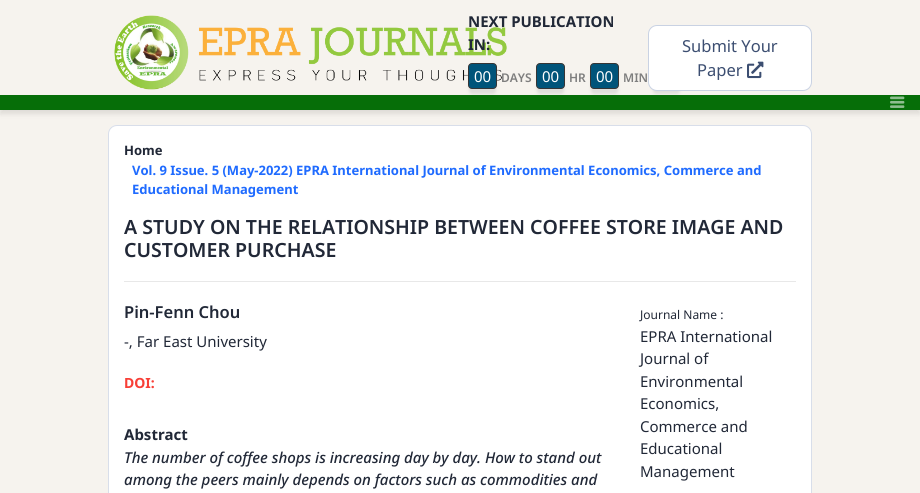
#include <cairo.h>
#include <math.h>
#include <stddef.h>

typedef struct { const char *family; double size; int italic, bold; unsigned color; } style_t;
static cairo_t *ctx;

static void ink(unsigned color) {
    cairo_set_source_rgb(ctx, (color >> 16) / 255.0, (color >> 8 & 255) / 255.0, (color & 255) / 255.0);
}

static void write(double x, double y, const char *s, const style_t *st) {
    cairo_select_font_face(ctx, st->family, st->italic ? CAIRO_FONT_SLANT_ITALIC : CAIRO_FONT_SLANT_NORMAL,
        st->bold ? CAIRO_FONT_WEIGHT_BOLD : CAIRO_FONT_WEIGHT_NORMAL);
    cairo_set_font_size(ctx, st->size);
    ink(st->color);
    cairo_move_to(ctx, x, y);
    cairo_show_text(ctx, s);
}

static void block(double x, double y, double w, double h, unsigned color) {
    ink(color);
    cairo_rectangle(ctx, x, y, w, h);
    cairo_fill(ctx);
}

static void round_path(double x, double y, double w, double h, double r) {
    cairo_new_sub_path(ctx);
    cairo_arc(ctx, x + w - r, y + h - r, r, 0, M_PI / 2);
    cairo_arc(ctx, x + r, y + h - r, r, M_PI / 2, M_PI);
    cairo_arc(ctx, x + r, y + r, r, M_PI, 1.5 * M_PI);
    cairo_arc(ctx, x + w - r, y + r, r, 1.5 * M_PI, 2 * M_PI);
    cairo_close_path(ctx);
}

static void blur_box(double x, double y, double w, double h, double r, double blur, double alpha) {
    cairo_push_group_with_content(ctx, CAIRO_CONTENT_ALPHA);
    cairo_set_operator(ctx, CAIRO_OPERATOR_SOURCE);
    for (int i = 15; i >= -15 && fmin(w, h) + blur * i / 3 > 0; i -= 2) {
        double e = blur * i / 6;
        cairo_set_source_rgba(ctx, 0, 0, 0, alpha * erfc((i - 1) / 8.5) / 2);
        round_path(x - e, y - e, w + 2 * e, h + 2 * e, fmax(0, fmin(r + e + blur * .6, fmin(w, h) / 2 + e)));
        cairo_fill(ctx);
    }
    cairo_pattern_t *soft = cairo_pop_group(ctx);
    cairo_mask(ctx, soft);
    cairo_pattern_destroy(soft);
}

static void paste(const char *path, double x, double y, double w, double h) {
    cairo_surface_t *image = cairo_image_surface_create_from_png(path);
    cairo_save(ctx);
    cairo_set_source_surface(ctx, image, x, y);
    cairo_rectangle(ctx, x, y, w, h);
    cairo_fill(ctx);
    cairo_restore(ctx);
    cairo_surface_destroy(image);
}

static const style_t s1 = {"Noto Sans", 15, 0, 1, 0x212837};
static const style_t s2 = {"Noto Sans", 15, 0, 0, 0xffffff};
static const style_t s3 = {"Noto Sans SemiBold", 12, 0, 0, 0x7e7e7e};
static const style_t s4 = {"Noto Sans", 16.5, 0, 0, 0x3c4e71};
static const style_t s5 = {"Noto Sans", 13, 0, 1, 0x212837};
static const style_t s6 = {"Noto Sans", 13, 0, 1, 0x1f6bff};
static const style_t s7 = {"Noto Sans SemiBold", 19.55, 0, 0, 0x212837};
static const style_t s8 = {"Noto Sans SemiBold", 16.5, 0, 0, 0x212837};
static const style_t s9 = {"Noto Sans", 15, 0, 0, 0x212837};
static const style_t s10 = {"Noto Sans", 14, 0, 1, 0xf83f37};
static const style_t s11 = {"Noto Sans Medium", 15, 1, 0, 0x212837};
static const style_t s12 = {"Noto Sans", 12, 0, 0, 0x212837};

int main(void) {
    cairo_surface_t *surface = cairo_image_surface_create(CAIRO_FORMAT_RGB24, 920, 493);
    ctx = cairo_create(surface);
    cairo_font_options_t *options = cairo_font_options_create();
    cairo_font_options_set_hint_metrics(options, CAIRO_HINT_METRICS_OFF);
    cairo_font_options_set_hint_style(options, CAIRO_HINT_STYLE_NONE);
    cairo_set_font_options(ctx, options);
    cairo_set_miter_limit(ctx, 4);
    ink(0xf6f3ee);
    cairo_paint(ctx);
    paste("pic1.png", 114, 15, 393, 75);
    write(468, 27, "NEXT PUBLICATION", &s1);
    write(468, 50, "IN:", &s1);
    ink(0xbfbfbf);
    blur_box(469, 70, 27, 24, 3, 1.5, 0.41);
    ink(0x00547a);
    round_path(468.5, 63.5, 28, 25, 3.5);
    cairo_fill_preserve(ctx);
    ink(0x363535);
    cairo_set_line_width(ctx, 1);
    cairo_stroke(ctx);
    write(474, 82, "00", &s2);
    write(501, 82, "DAYS", &s3);
    ink(0xbfbfbf);
    blur_box(537, 70, 27, 24, 3, 1.5, 0.41);
    ink(0x00547a);
    round_path(536.5, 63.5, 28, 25, 3.5);
    cairo_fill_preserve(ctx);
    ink(0x363535);
    cairo_stroke(ctx);
    write(542, 82, "00", &s2);
    write(569, 82, "HR", &s3);
    ink(0xbfbfbf);
    blur_box(591, 70, 27, 24, 3, 1.5, 0.41);
    ink(0x00547a);
    round_path(590.5, 63.5, 28, 25, 3.5);
    cairo_fill_preserve(ctx);
    ink(0x363535);
    cairo_stroke(ctx);
    write(596, 82, "00", &s2);
    write(623, 82, "MIN", &s3);
    ink(0xbfbfbf);
    blur_box(653, 70, 27, 24, 3, 1.5, 0.41);
    ink(0xffffff);
    round_path(648.5, 25.5, 163, 65, 8.5);
    cairo_fill_preserve(ctx);
    ink(0xc9d2e3);
    cairo_stroke(ctx);
    write(682, 52, "Submit Your", &s4);
    write(697, 76, "Paper", &s4);
    paste("pic2.png", 747, 61, 17, 18);
    ink(0x000000);
    blur_box(0, 99, 920, 15, 0, 2.5, 0.1);
    block(0, 95, 920, 15, 0x066e08);
    paste("pic3.png", 890, 96, 15, 12);
    ink(0xffffff);
    round_path(108, 125, 704, 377, 9);
    cairo_fill(ctx);
    round_path(108.5, 125.5, 703, 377, 8.5);
    cairo_set_source_rgba(ctx, 0.396, 0.494, 0.682, 0.25);
    cairo_stroke(ctx);
    write(124, 155, "Home", &s5);
    write(132, 175, "Vol. 9 Issue. 5 (May-2022) EPRA International Journal of Environmental Economics, Commerce and", &s6);
    write(132, 194, "Educational Management", &s6);
    write(124, 234, "A STUDY ON THE RELATIONSHIP BETWEEN COFFEE STORE IMAGE AND", &s7);
    write(124, 257, "CUSTOMER PURCHASE", &s7);
    block(124, 281, 672, 1, 0xe8e8e8);
    write(124, 318, "Pin-Fenn Chou", &s8);
    write(124, 347, "-, Far East University", &s9);
    write(124, 388, "DOI:", &s10);
    write(124, 440, "Abstract", &s1);
    write(124, 463, "The number of coffee shops is increasing day by day. How to stand out", &s11);
    write(124, 485, "among the peers mainly depends on factors such as commodities and", &s11);
    write(640, 319, "Journal Name :", &s12);
    write(640, 342, "EPRA International", &s9);
    write(640, 364, "Journal of", &s9);
    write(640, 387, "Environmental", &s9);
    write(640, 409, "Economics,", &s9);
    write(640, 432, "Commerce and", &s9);
    write(640, 454, "Educational", &s9);
    write(640, 477, "Management", &s9);
    cairo_surface_write_to_png(surface, "screenshot.png");
    cairo_font_options_destroy(options);
    cairo_destroy(ctx);
    cairo_surface_destroy(surface);
    return 0;
}
